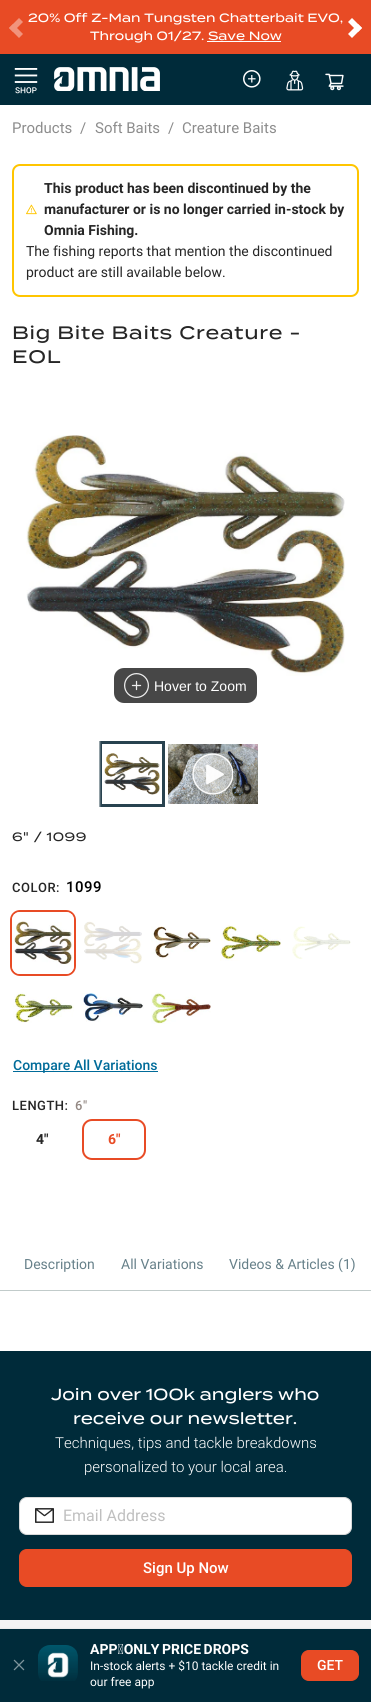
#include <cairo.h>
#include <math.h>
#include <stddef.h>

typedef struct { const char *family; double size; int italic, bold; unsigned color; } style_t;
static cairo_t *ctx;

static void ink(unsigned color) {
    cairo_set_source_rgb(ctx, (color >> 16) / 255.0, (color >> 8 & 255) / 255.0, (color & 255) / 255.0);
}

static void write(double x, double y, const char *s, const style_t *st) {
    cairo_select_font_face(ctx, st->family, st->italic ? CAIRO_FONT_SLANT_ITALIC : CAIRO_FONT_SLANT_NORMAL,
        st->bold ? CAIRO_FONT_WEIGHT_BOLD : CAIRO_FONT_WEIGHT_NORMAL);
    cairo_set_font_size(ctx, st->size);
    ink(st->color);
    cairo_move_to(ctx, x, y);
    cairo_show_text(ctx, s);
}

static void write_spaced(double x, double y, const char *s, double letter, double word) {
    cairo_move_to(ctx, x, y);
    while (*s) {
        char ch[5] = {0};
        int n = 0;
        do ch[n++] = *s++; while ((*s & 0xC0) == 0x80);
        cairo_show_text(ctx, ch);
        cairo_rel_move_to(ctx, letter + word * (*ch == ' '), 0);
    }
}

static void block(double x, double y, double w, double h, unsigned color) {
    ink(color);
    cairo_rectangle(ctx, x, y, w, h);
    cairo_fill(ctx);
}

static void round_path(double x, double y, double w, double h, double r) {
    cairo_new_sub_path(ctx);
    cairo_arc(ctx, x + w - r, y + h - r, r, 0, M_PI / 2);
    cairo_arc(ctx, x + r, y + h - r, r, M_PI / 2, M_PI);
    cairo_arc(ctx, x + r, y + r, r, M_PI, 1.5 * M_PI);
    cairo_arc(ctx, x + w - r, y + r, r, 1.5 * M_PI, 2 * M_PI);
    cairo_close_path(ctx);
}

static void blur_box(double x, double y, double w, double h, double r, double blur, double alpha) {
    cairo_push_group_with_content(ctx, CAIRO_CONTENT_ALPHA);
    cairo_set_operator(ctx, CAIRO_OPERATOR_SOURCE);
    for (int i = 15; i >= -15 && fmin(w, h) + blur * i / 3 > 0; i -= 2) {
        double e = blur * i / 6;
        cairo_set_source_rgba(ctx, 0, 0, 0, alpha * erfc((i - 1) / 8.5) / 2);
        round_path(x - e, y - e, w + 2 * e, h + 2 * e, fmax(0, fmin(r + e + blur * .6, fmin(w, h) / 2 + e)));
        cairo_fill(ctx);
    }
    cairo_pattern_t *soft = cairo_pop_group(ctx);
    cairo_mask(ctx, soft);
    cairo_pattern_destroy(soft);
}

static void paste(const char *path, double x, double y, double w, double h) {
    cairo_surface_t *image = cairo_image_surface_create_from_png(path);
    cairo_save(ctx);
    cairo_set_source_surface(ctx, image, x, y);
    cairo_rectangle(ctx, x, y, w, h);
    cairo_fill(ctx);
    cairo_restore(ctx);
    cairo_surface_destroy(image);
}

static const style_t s1 = {"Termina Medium", 12, 0, 0, 0xffffff};
static const style_t s2 = {"Roboto", 15, 0, 0, 0x8c8c8c};
static const style_t s3 = {"Roboto", 14, 0, 1, 0x262626};
static const style_t s4 = {"Roboto", 14, 0, 0, 0x262626};
static const style_t s5 = {"Liberation Sans", 14, 0, 0, 0xffffff};
static const style_t s6 = {"Roboto Medium", 14, 0, 0, 0x006b99};
static const style_t s7 = {"Roboto", 14, 0, 1, 0xe84b25};
static const style_t s8 = {"Roboto", 14, 0, 0, 0x668089};
static const style_t s9 = {"Termina Medium", 16, 0, 0, 0xffffff};
static const style_t s10 = {"Roboto Light", 15, 0, 0, 0xffffff};
static const style_t s11 = {"Roboto", 16, 0, 0, 0xbfbfbf};
static const style_t s12 = {"Roboto Medium", 15, 0, 0, 0xffffff};
static const style_t s13 = {"Roboto", 12, 0, 0, 0xffffff};
static const style_t s14 = {"Roboto Medium", 14, 0, 0, 0xffffff};

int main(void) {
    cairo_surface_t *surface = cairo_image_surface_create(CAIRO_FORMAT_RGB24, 371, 1702);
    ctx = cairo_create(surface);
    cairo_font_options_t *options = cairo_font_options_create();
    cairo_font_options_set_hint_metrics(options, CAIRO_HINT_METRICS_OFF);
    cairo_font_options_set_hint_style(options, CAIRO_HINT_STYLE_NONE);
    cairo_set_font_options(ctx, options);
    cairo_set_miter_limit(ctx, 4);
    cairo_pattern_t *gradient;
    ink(0xffffff);
    cairo_paint(ctx);
    block(0, 0, 371, 54, 0xe84b25);
    ink(0xf1937c);
    cairo_new_path(ctx);
    cairo_move_to(ctx, 9, 28);
    cairo_line_to(ctx, 19, 18);
    cairo_line_to(ctx, 23, 22);
    cairo_line_to(ctx, 13, 32);
    cairo_close_path(ctx);
    cairo_fill(ctx);
    cairo_new_path(ctx);
    cairo_move_to(ctx, 13, 24);
    cairo_line_to(ctx, 23, 34);
    cairo_line_to(ctx, 19, 38);
    cairo_line_to(ctx, 9, 28);
    cairo_close_path(ctx);
    cairo_fill(ctx);
    write(28, 22, "20% Off Z-Man Tungsten Chatterbait EVO,", &s1);
    write(90, 40, "Through 01/27. Save Now", &s1);
    block(207, 41, 74, 1, 0xffffff);
    cairo_new_path(ctx);
    cairo_move_to(ctx, 352, 18);
    cairo_line_to(ctx, 362, 28);
    cairo_line_to(ctx, 358, 32);
    cairo_line_to(ctx, 348, 22);
    cairo_close_path(ctx);
    cairo_fill(ctx);
    cairo_new_path(ctx);
    cairo_move_to(ctx, 348, 34);
    cairo_line_to(ctx, 358, 24);
    cairo_line_to(ctx, 362, 28);
    cairo_line_to(ctx, 352, 38);
    cairo_close_path(ctx);
    cairo_fill(ctx);
    block(0, 54, 371, 51, 0x002b3a);
    paste("pic1.png", 14, 68, 24, 26);
    paste("pic2.png", 54, 67, 106, 24);
    paste("pic3.png", 243, 70, 18, 18);
    paste("pic4.png", 286, 70, 18, 21);
    paste("pic5.png", 325, 73, 19, 18);
    write(12, 133, "Products", &s2);
    write(80, 133, "/", &s2);
    write(95, 133, "Soft Baits", &s2);
    write(168, 133, "/", &s2);
    write(182, 133, "Creature Baits", &s2);
    round_path(13, 165, 345, 131, 7);
    ink(0xffc500);
    cairo_stroke(ctx);
    write(44, 193, "This product has been discontinued by the", &s3);
    paste("pic6.png", 26, 204, 11, 11);
    write(44, 214, "manufacturer or is no longer carried in-stock by", &s3);
    write(44, 235, "Omnia Fishing.", &s3);
    write(26, 256, "The fishing reports that mention the discontinued", &s4);
    write(26, 277, "product are still available below.", &s4);
    cairo_select_font_face(ctx, "Termina Medium", CAIRO_FONT_SLANT_NORMAL, CAIRO_FONT_WEIGHT_NORMAL);
    cairo_set_font_size(ctx, 18);
    write_spaced(12, 339, "Big Bite Baits Creature -", 0.8, 0);
    write_spaced(12, 363, "EOL", 0.8, 0);
    paste("pic7.png", 26, 435, 319, 241);
    ink(0x474747);
    round_path(114, 668, 143, 35, 10);
    cairo_fill(ctx);
    paste("pic8.png", 124, 673, 25, 25);
    write(154, 691, "Hover to Zoom", &s5);
    paste("pic9.png", 104, 753, 56, 42);
    cairo_rectangle(ctx, 100.5, 742.5, 63, 63);
    ink(0x28424f);
    cairo_set_line_width(ctx, 3);
    cairo_stroke(ctx);
    gradient = cairo_pattern_create_linear(98, 774, 101, 774);
    cairo_pattern_add_color_stop_rgba(gradient, 0, 1, 1, 1, 1);
    cairo_pattern_add_color_stop_rgba(gradient, 1, 1, 1, 1, 0);
    cairo_set_source(ctx, gradient);
    cairo_pattern_destroy(gradient);
    cairo_rectangle(ctx, 99, 740, 2, 68);
    cairo_fill(ctx);
    paste("pic10.png", 168, 744, 90, 60);
    paste("pic11.png", 192, 753, 41, 42);
    cairo_select_font_face(ctx, "Termina Medium", CAIRO_FONT_SLANT_NORMAL, CAIRO_FONT_WEIGHT_NORMAL);
    cairo_set_font_size(ctx, 12);
    ink(0x262626);
    write_spaced(12, 841, "6\" / 1099", 0.5, 0);
    cairo_select_font_face(ctx, "Roboto Medium", CAIRO_FONT_SLANT_NORMAL, CAIRO_FONT_WEIGHT_NORMAL);
    cairo_set_font_size(ctx, 13);
    write_spaced(12, 892, "COLOR:", 0.5, 0);
    cairo_set_font_size(ctx, 15);
    ink(0x000000);
    write_spaced(66, 892, "1099", 0.5, 0);
    round_path(11, 911, 64, 64, 9);
    ink(0xe84b25);
    cairo_set_line_width(ctx, 2);
    cairo_stroke(ctx);
    paste("pic12.png", 12, 912, 62, 62);
    paste("pic13.png", 84, 921, 58, 43);
    paste("pic14.png", 151, 926, 60, 34);
    paste("pic15.png", 220, 925, 61, 36);
    paste("pic16.png", 292, 926, 59, 33);
    paste("pic17.png", 13, 992, 61, 31);
    paste("pic18.png", 81, 993, 63, 29);
    paste("pic19.png", 151, 992, 60, 32);
    block(13, 1071, 145, 1, 0x006b99);
    write(13, 1070, "Compare All Variations", &s6);
    cairo_set_font_size(ctx, 13);
    ink(0x262626);
    write_spaced(12, 1110, "LENGTH:", 0.5, 0);
    ink(0x938883);
    write_spaced(75, 1110, "6\"", 0.5, 0);
    write(36, 1144, "4\"", &s3);
    round_path(83, 1120, 62, 39, 9);
    ink(0xe84b25);
    cairo_stroke(ctx);
    write(108, 1144, "6\"", &s7);
    block(0, 1290, 371, 1, 0xc1cbca);
    write(24, 1269, "Description", &s8);
    write(121, 1269, "All Variations", &s8);
    write(229, 1269, "Videos & Articles (1)", &s8);
    block(0, 1351, 371, 269, 0x002b3a);
    write(51, 1400, "Join over 100k anglers who", &s9);
    write(73, 1424, "receive our newsletter.", &s9);
    write(55, 1448, "Techniques, tips and tackle breakdowns", &s10);
    write(84, 1472, "personalized to your local area.", &s10);
    round_path(19.5, 1497.5, 332, 37, 7.5);
    cairo_fill_preserve(ctx);
    ink(0xd9d9d9);
    cairo_set_line_width(ctx, 1);
    cairo_stroke(ctx);
    paste("pic20.png", 35, 1508, 19, 15);
    write(63, 1521, "Email Address", &s11);
    ink(0xe84b25);
    round_path(19.5, 1549.5, 332, 37, 7.5);
    cairo_fill_preserve(ctx);
    cairo_stroke(ctx);
    write(143, 1573, "Sign Up Now", &s12);
    block(0, 1620, 371, 9, 0xf4f4f4);
    ink(0x000000);
    blur_box(0, 1630, 371, 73, 0, 1.5, 0.2);
    block(0, 1629, 371, 73, 0x002b3a);
    paste("pic21.png", 13, 1659, 12, 12);
    paste("pic22.png", 38, 1645, 40, 36);
    cairo_select_font_face(ctx, "Roboto", CAIRO_FONT_SLANT_NORMAL, CAIRO_FONT_WEIGHT_BOLD);
    cairo_set_font_size(ctx, 14);
    ink(0xffffff);
    write_spaced(90, 1654, "APP‑ONLY PRICE DROPS", 0, -1);
    write(90, 1670, "In-stock alerts + $10 tackle credit in", &s13);
    write(90, 1686, "our free app", &s13);
    ink(0xe84b25);
    round_path(301.5, 1650.5, 57, 30, 7.5);
    cairo_fill_preserve(ctx);
    cairo_stroke(ctx);
    write(317, 1670, "GET", &s14);
    cairo_surface_write_to_png(surface, "screenshot.png");
    cairo_font_options_destroy(options);
    cairo_destroy(ctx);
    cairo_surface_destroy(surface);
    return 0;
}
